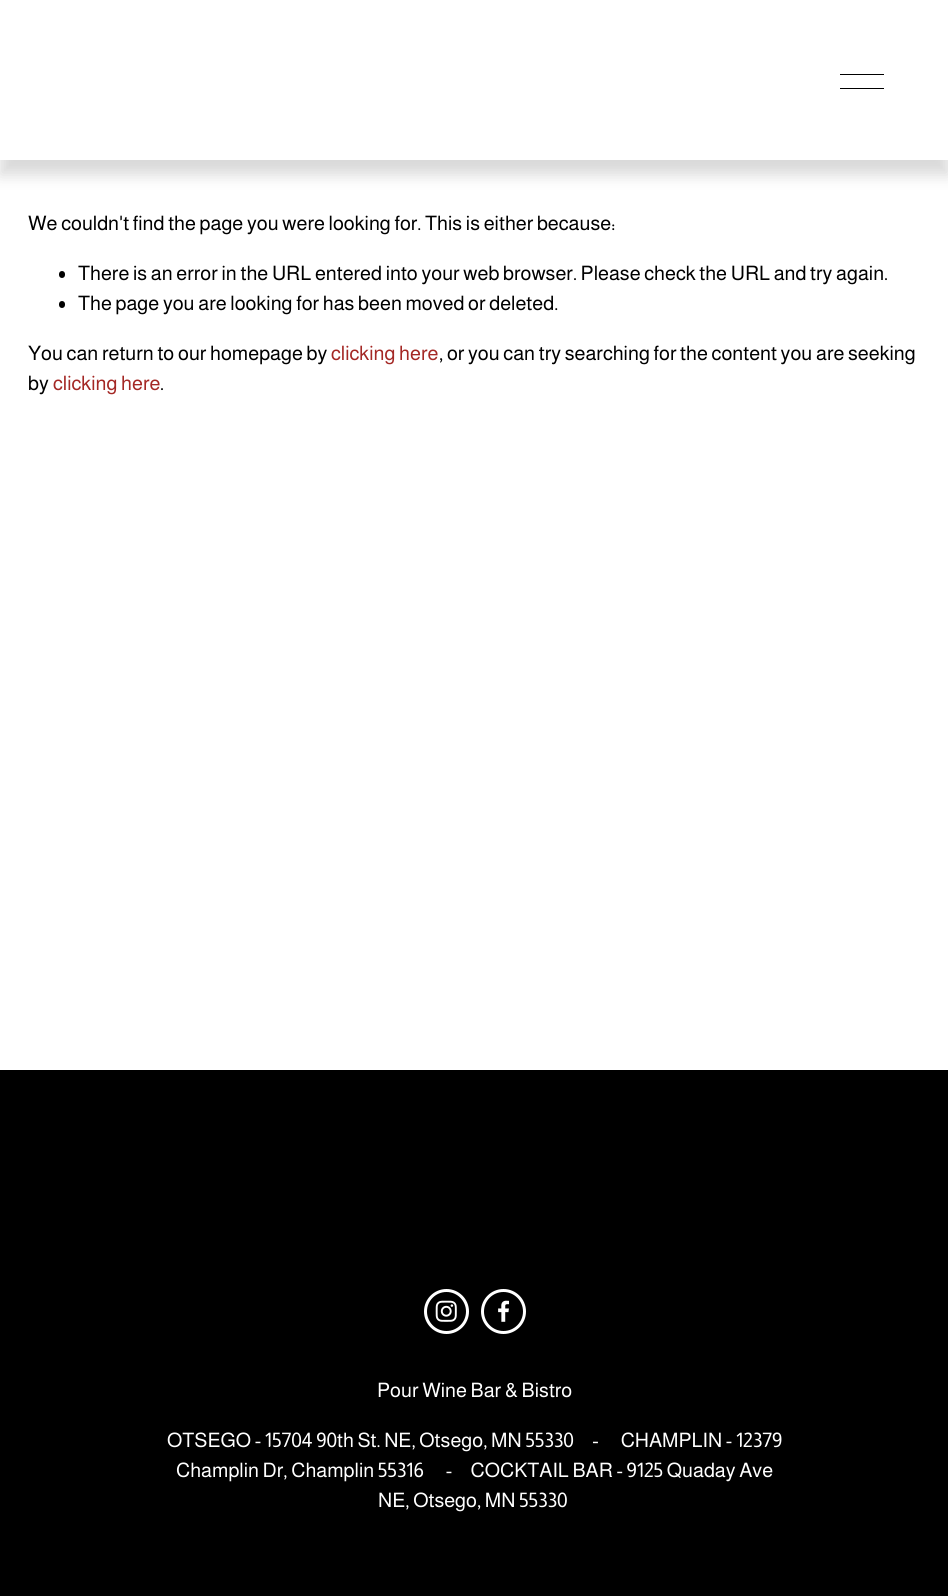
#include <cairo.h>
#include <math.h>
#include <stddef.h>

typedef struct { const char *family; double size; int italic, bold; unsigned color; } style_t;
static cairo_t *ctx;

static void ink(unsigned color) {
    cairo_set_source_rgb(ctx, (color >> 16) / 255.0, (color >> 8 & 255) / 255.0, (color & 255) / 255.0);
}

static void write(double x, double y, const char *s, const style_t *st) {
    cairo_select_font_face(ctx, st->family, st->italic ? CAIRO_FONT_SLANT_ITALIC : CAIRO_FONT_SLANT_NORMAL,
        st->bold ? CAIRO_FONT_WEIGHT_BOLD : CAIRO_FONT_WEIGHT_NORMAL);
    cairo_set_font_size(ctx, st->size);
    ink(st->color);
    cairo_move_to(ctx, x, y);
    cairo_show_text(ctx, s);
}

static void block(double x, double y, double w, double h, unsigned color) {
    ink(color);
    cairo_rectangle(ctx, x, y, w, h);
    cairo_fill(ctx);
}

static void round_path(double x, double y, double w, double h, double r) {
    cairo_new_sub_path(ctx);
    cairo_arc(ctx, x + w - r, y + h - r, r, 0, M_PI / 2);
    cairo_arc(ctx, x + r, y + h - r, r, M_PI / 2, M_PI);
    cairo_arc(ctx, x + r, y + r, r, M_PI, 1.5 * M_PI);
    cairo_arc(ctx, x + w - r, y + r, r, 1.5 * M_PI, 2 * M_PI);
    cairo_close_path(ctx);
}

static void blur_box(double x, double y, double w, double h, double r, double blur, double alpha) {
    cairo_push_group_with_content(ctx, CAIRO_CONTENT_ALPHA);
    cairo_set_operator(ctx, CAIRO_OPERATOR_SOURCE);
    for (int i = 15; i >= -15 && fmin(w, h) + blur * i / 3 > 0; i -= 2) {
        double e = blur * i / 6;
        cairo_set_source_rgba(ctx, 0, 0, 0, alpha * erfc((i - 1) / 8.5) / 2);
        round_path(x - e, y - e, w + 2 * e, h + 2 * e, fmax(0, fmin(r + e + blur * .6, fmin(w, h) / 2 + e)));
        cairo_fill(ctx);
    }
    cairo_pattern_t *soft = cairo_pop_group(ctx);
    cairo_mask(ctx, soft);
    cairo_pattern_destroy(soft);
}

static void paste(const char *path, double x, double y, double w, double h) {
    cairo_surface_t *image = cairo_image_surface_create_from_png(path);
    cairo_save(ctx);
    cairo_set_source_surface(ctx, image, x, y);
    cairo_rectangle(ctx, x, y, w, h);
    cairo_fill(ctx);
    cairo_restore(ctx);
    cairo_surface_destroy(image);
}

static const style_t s1 = {"Almarai", 20, 0, 0, 0x000000};
static const style_t s2 = {"Almarai", 20, 0, 0, 0xa42825};
static const style_t s3 = {"Almarai", 20, 0, 0, 0xffffff};

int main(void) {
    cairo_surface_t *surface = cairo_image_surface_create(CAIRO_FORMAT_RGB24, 948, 1596);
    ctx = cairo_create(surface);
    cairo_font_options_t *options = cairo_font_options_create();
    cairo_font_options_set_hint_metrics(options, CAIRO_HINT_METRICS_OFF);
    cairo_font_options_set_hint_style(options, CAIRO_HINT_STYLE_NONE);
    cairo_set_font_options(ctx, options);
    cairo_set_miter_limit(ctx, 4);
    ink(0xffffff);
    cairo_paint(ctx);
    cairo_save(ctx);
    cairo_rectangle(ctx, 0, 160, 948, 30);
    cairo_clip(ctx);
    ink(0xd9d9d9);
    blur_box(0, 15, 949, 160, 0, 7.5, 1);
    cairo_restore(ctx);
    block(840, 74, 44, 1, 0x000000);
    block(840, 88, 44, 1, 0x000000);
    write(28, 230, "We couldn't find the page you were looking for. This is either because:", &s1);
    round_path(59, 271, 6, 7, 3);
    cairo_fill(ctx);
    write(78, 280, "There is an error in the URL entered into your web browser. Please check the URL and try again.", &s1);
    round_path(59, 301, 6, 7, 3);
    cairo_fill(ctx);
    write(78, 310, "The page you are looking for has been moved or deleted.", &s1);
    write(28, 360, "You can return to our homepage by", &s1);
    write(331, 360, "clicking here", &s2);
    write(439, 360, ", or you can try searching for the content you are seeking", &s1);
    write(28, 390, "by", &s1);
    write(53, 390, "clicking here", &s2);
    write(160, 390, ".", &s1);
    block(0, 1070, 948, 526, 0x000000);
    cairo_new_path(ctx);
    cairo_arc(ctx, 446.5, 1311.5, 21, 0, 2 * M_PI);
    ink(0xffffff);
    cairo_set_line_width(ctx, 3);
    cairo_stroke(ctx);
    paste("pic1.png", 435, 1300, 22, 22);
    cairo_arc(ctx, 503.5, 1311.5, 21, 0, 2 * M_PI);
    cairo_stroke(ctx);
    paste("pic2.png", 498, 1300, 12, 22);
    write(377, 1397, "Pour Wine Bar & Bistro", &s3);
    write(167, 1447, "OTSEGO - 15704 90th St. NE, Otsego, MN 55330     -      CHAMPLIN - 12379", &s3);
    write(176, 1477, "Champlin Dr, Champlin 55316      -     COCKTAIL BAR - 9125 Quaday Ave", &s3);
    write(378, 1507, "NE, Otsego, MN 55330", &s3);
    cairo_surface_write_to_png(surface, "screenshot.png");
    cairo_font_options_destroy(options);
    cairo_destroy(ctx);
    cairo_surface_destroy(surface);
    return 0;
}
